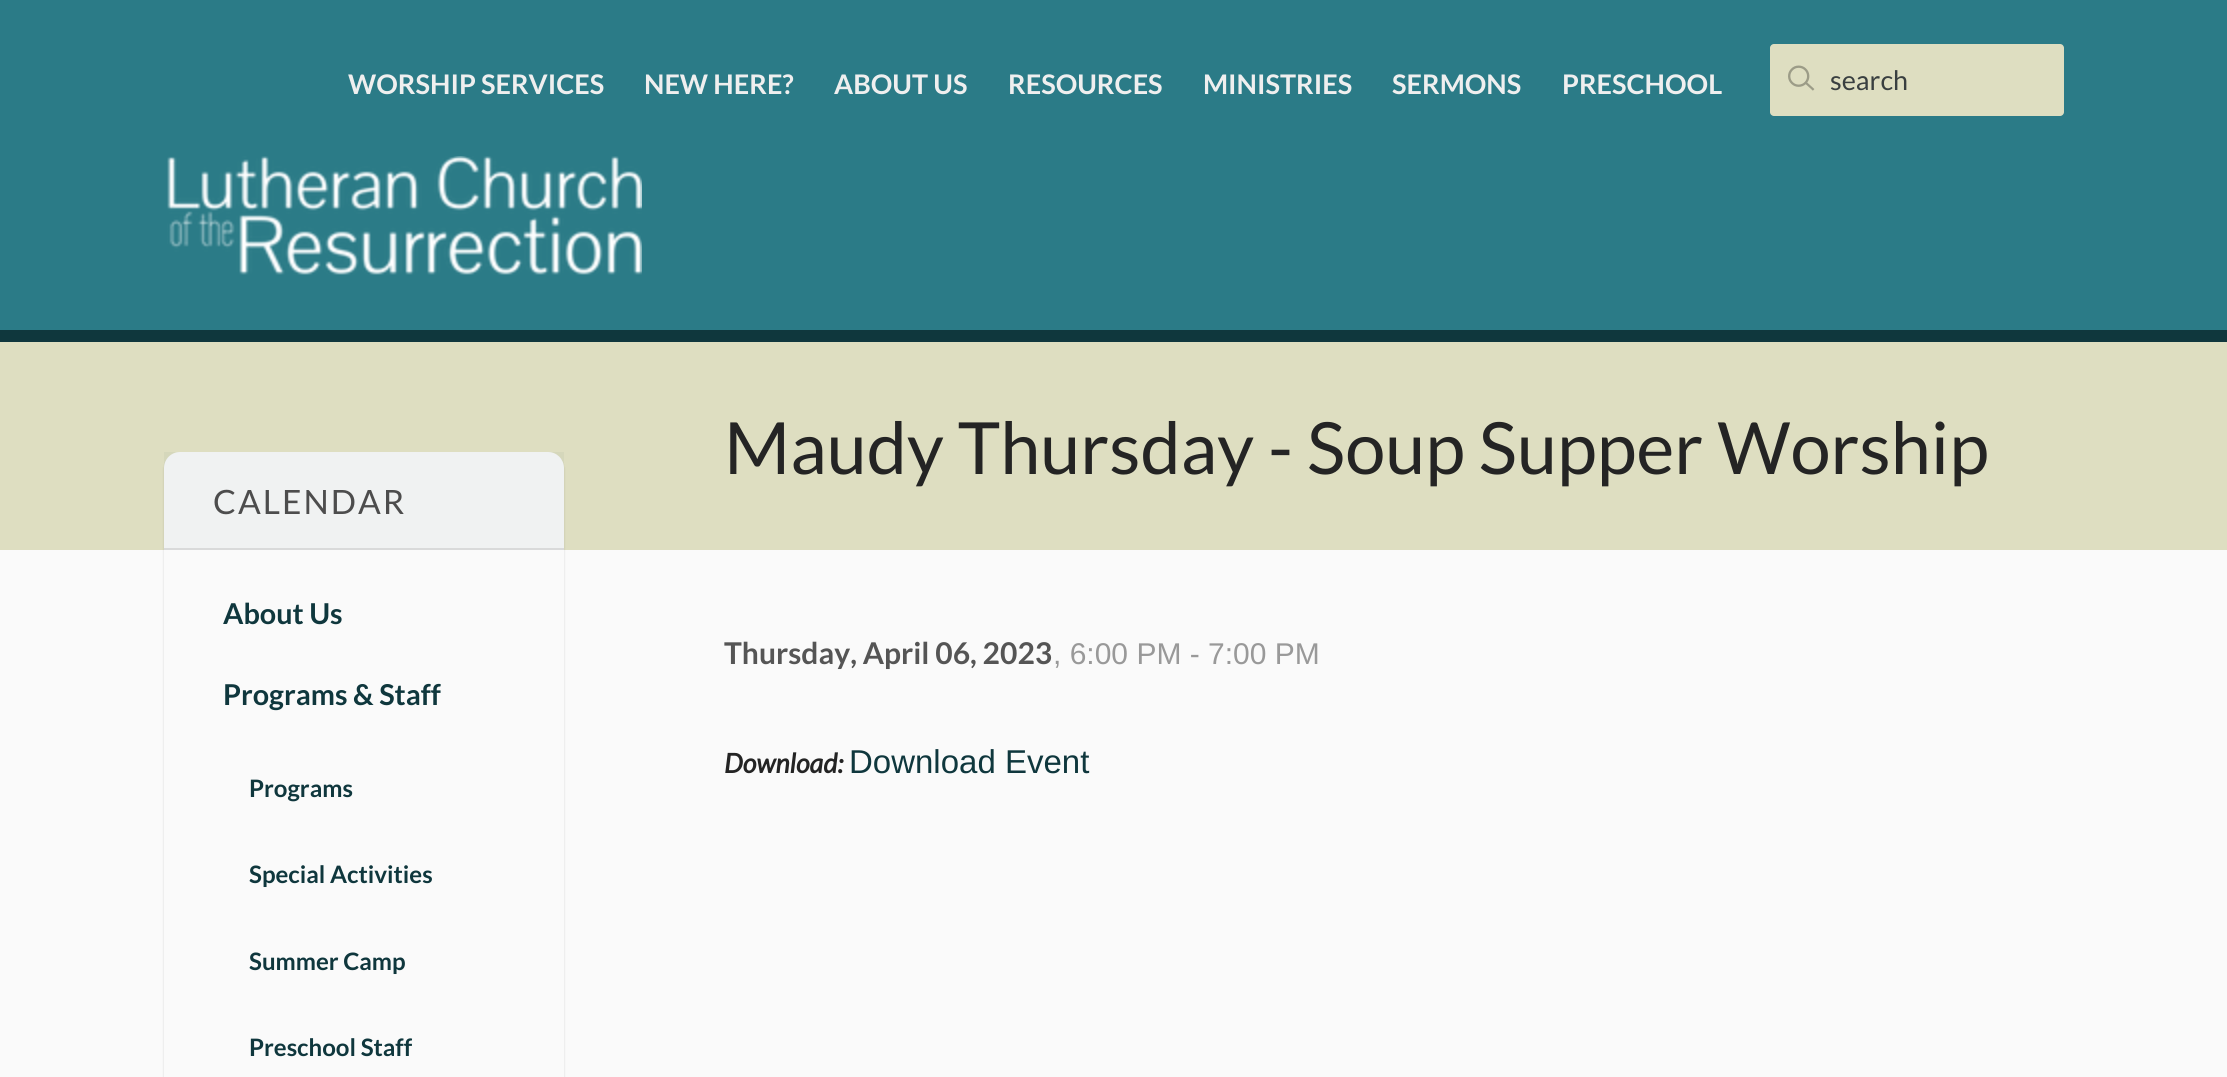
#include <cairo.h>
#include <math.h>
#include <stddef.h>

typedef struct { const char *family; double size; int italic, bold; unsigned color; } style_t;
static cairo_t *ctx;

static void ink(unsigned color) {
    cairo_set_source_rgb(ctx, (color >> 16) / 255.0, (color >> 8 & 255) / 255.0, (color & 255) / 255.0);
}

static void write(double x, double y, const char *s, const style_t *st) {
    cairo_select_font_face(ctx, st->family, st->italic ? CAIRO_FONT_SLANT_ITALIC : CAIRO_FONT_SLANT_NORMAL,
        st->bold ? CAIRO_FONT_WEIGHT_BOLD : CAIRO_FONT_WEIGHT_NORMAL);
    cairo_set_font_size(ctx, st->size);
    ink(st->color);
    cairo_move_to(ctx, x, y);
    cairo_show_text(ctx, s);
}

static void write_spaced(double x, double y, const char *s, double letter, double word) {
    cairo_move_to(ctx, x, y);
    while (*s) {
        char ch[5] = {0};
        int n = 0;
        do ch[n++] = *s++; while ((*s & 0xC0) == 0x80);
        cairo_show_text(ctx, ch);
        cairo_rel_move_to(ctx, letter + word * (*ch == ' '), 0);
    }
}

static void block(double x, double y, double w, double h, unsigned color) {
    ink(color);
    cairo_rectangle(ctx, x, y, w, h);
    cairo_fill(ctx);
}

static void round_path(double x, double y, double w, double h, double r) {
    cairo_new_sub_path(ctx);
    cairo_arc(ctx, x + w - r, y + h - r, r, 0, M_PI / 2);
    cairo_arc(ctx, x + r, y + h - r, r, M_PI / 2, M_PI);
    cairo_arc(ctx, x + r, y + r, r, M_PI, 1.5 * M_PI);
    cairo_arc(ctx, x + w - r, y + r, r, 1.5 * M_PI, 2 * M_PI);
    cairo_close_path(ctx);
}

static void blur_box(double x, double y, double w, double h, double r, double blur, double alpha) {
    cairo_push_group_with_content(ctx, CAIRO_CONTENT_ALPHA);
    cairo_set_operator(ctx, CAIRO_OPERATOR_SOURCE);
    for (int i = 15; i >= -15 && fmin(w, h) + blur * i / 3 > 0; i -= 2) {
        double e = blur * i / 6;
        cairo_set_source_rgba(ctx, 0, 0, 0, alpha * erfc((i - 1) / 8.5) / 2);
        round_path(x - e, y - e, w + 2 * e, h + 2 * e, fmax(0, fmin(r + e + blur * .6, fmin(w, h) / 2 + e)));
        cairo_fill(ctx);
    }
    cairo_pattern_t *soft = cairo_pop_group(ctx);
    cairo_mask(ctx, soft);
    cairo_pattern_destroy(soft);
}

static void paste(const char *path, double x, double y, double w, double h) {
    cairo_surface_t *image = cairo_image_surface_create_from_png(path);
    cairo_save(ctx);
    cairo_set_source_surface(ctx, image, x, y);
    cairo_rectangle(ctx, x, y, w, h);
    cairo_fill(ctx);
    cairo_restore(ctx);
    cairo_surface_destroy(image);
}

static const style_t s1 = {"Lato", 27, 0, 1, 0xefefef};
static const style_t s2 = {"Lato", 27, 0, 0, 0x393f40};
static const style_t s3 = {"Lato", 72, 0, 0, 0x242424};
static const style_t s4 = {"Lato", 28.75, 0, 1, 0x0f373d};
static const style_t s5 = {"Lato", 24, 0, 1, 0x0f373d};
static const style_t s6 = {"Lato", 30, 0, 1, 0x555555};
static const style_t s7 = {"Liberation Sans", 30, 0, 0, 0x999999};
static const style_t s8 = {"Lato", 27, 1, 1, 0x242424};
static const style_t s9 = {"Liberation Sans", 33, 0, 0, 0x0f373d};

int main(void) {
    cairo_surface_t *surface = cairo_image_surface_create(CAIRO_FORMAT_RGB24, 2227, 1077);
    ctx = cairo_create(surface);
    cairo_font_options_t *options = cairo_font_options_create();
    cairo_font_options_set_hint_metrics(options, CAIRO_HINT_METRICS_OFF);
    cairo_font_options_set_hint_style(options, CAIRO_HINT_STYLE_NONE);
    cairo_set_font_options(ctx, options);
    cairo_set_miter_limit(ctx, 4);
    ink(0x2b7b87);
    cairo_paint(ctx);
    block(0, 330, 2227, 12, 0x0f373d);
    write(348, 94, "WORSHIP SERVICES", &s1);
    write(644, 94, "NEW HERE?", &s1);
    write(834, 94, "ABOUT US", &s1);
    write(1008, 94, "RESOURCES", &s1);
    write(1203, 94, "MINISTRIES", &s1);
    write(1392, 94, "SERMONS", &s1);
    write(1562, 94, "PRESCHOOL", &s1);
    ink(0xdedec1);
    round_path(1770, 44, 294, 72, 4);
    cairo_fill(ctx);
    paste("pic1.png", 1788, 65, 27, 26);
    write(1830, 90, "search", &s2);
    paste("pic2.png", 167, 156, 475, 119);
    block(0, 342, 2227, 208, 0xdedec1);
    write(724, 474, "Maudy Thursday - Soup Supper Worship", &s3);
    block(0, 550, 2227, 527, 0xfafafa);
    ink(0x000000);
    blur_box(164, 454, 400, 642, 16, 1, 0.15);
    ink(0xfafafa);
    round_path(164, 452, 400, 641, 16);
    cairo_fill(ctx);
    cairo_set_source_rgba(ctx, 0.059, 0.216, 0.239, 0.04);
    cairo_rectangle(ctx, 164, 452, 400, 96);
    cairo_fill(ctx);
    block(164, 548, 400, 2, 0xd9dada);
    cairo_set_font_size(ctx, 33.5);
    ink(0x4d4d4d);
    write_spaced(213, 514, "CALENDAR", 2, 0);
    write(223, 624, "About Us", &s4);
    write(223, 705, "Programs & Staff", &s4);
    write(249, 797, "Programs", &s5);
    write(249, 883, "Special Activities", &s5);
    write(249, 970, "Summer Camp", &s5);
    write(249, 1056, "Preschool Staff", &s5);
    write(724, 664, "Thursday, April 06, 2023", &s6);
    write(1053, 664, ", 6:00 PM - 7:00 PM", &s7);
    write(724, 773, "Download:", &s8);
    write(849, 773, "Download Event", &s9);
    cairo_surface_write_to_png(surface, "screenshot.png");
    cairo_font_options_destroy(options);
    cairo_destroy(ctx);
    cairo_surface_destroy(surface);
    return 0;
}
